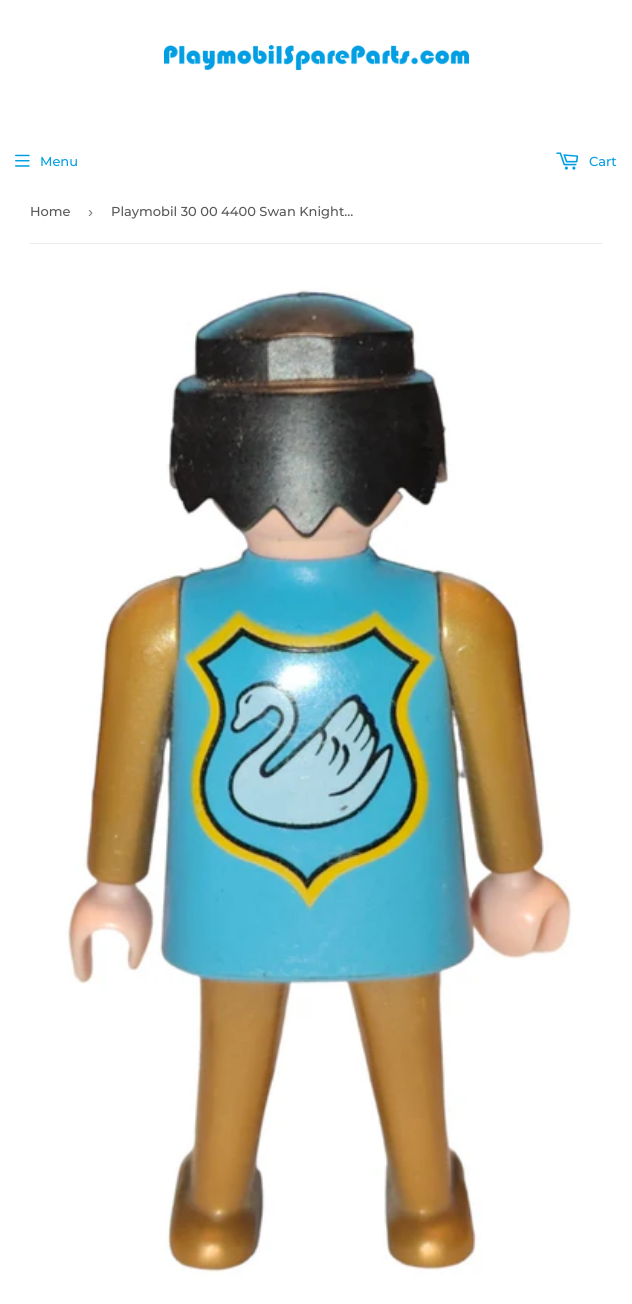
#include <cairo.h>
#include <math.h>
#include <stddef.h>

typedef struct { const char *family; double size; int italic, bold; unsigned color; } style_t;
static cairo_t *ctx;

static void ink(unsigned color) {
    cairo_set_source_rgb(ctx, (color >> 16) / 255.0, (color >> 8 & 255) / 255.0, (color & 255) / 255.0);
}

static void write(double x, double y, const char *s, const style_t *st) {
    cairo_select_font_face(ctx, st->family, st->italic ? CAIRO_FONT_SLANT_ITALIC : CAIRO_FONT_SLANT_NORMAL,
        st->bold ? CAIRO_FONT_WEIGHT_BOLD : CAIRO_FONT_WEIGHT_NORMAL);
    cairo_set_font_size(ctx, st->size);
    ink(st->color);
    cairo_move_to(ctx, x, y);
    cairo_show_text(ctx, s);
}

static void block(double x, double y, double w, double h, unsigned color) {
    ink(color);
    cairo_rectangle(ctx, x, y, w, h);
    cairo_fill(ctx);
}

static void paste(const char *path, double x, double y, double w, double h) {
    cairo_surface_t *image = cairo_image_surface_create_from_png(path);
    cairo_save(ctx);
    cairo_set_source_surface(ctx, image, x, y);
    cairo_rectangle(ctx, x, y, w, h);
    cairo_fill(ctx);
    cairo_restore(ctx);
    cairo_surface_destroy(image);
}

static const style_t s1 = {"Montserrat Medium", 13, 0, 0, 0x009ee3};
static const style_t s2 = {"Montserrat Medium", 13, 0, 0, 0x585858};
static const style_t s3 = {"Liberation Sans", 15, 0, 0, 0x767676};

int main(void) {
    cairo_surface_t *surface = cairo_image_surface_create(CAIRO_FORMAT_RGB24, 632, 1304);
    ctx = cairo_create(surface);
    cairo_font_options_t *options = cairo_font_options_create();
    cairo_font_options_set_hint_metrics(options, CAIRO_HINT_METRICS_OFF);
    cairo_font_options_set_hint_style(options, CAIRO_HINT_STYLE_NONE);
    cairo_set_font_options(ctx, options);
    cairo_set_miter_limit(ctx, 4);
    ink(0xffffff);
    cairo_paint(ctx);
    paste("pic1.png", 164, 45, 305, 25);
    paste("pic2.png", 15, 154, 15, 13);
    write(40, 166, "Menu", &s1);
    paste("pic3.png", 556, 152, 23, 18);
    write(589, 166, "Cart", &s1);
    block(30, 243, 572, 1, 0xececec);
    write(30, 216, "Home", &s2);
    write(88, 217, "›", &s3);
    write(111, 216, "Playmobil 30 00 4400 Swan Knight…", &s2);
    paste("pic4.png", 65, 287, 508, 990);
    cairo_surface_write_to_png(surface, "screenshot.png");
    cairo_font_options_destroy(options);
    cairo_destroy(ctx);
    cairo_surface_destroy(surface);
    return 0;
}
